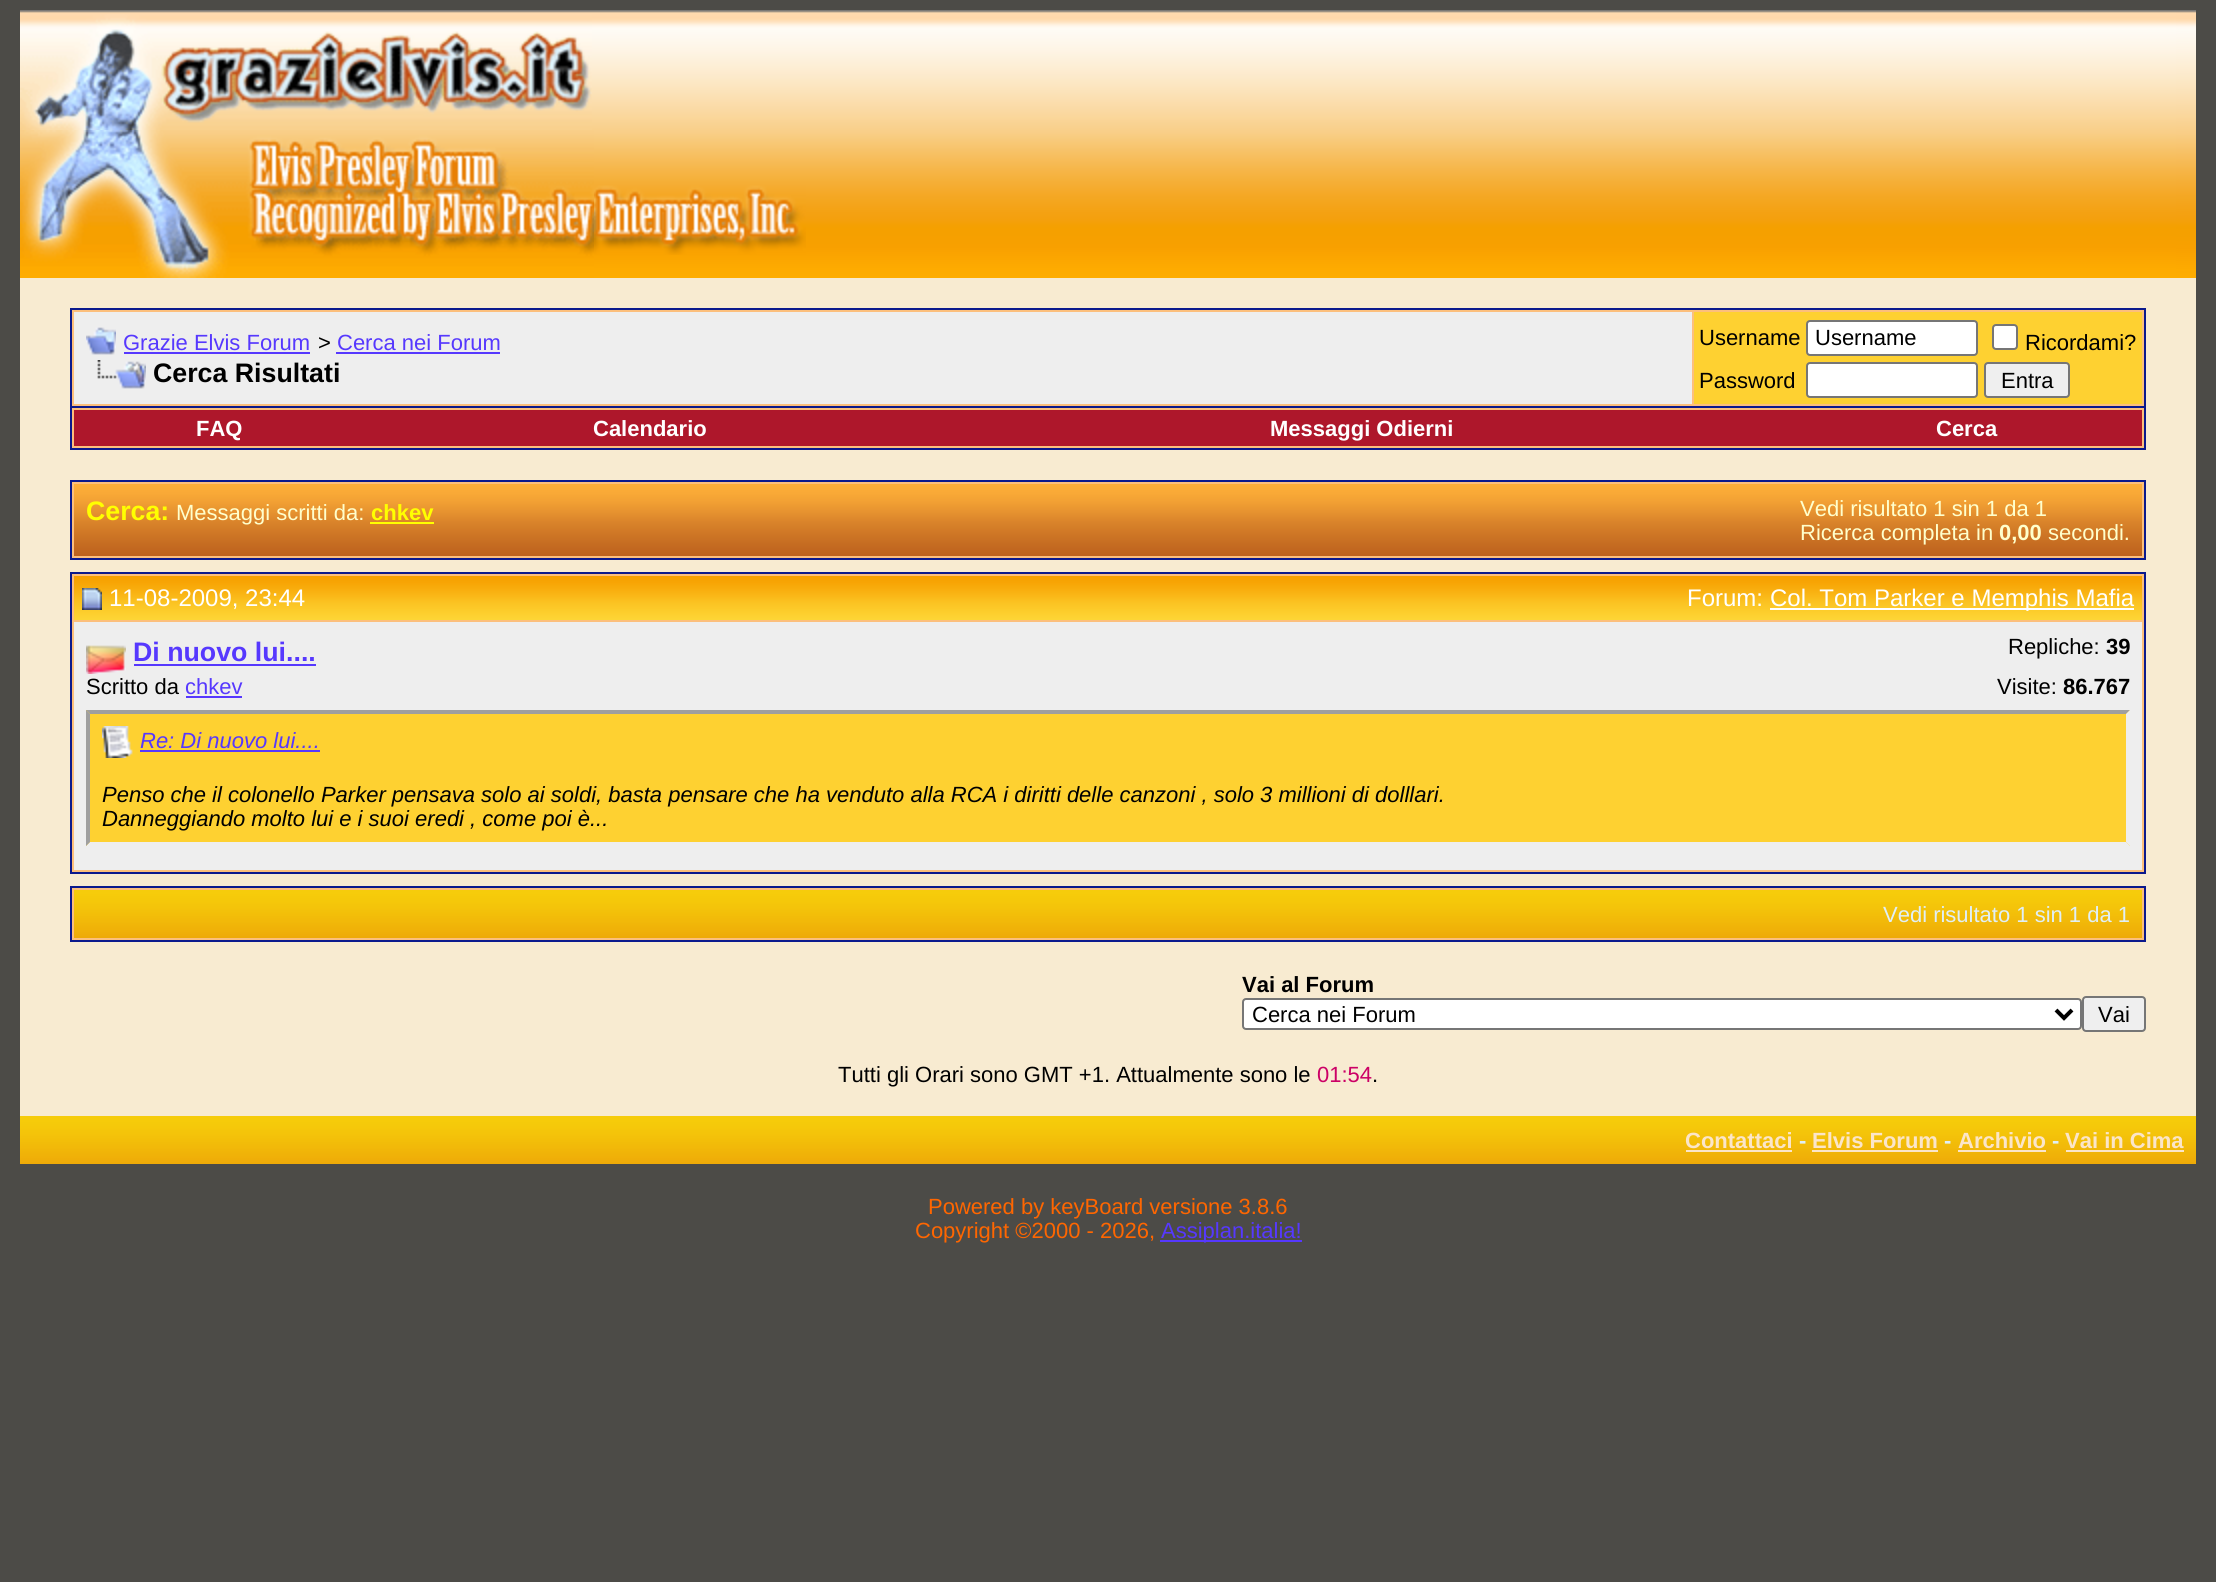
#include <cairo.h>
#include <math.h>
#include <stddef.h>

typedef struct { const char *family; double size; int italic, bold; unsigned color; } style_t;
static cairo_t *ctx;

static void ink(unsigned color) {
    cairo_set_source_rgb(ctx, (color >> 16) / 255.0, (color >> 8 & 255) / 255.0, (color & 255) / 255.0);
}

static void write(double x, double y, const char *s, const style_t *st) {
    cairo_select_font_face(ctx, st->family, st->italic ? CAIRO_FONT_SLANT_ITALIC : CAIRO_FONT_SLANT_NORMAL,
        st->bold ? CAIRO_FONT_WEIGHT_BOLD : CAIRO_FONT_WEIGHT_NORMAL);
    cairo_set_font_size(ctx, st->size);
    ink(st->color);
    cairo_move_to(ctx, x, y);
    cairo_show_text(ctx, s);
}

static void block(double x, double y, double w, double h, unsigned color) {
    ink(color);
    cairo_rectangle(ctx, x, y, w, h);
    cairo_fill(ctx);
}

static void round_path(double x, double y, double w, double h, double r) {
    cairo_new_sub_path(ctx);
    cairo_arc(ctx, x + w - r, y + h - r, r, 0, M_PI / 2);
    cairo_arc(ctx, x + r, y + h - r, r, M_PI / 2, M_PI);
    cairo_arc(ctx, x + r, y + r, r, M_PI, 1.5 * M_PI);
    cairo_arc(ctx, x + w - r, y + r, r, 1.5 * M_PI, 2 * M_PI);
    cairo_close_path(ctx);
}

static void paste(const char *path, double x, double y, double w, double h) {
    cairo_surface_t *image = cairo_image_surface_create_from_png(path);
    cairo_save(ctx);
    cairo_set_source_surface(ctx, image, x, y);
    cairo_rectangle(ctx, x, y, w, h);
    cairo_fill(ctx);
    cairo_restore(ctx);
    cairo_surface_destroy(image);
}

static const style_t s1 = {"Liberation Sans", 22, 0, 0, 0x5638fe};
static const style_t s2 = {"Liberation Sans", 22, 0, 0, 0x000000};
static const style_t s3 = {"Liberation Sans", 26.75, 0, 1, 0x000000};
static const style_t s4 = {"Liberation Sans", 22, 0, 1, 0xffffff};
static const style_t s5 = {"Liberation Sans", 26.75, 0, 1, 0xffff00};
static const style_t s6 = {"Liberation Sans", 22, 0, 0, 0xffffcc};
static const style_t s7 = {"Liberation Sans", 22, 0, 1, 0xffff00};
static const style_t s8 = {"Liberation Sans", 22, 0, 1, 0xffffcc};
static const style_t s9 = {"Liberation Sans", 24, 0, 0, 0xffffff};
static const style_t s10 = {"Liberation Sans", 26.75, 0, 1, 0x5638fe};
static const style_t s11 = {"Liberation Sans", 22, 0, 1, 0x000000};
static const style_t s12 = {"Liberation Sans", 22, 1, 0, 0x5638fe};
static const style_t s13 = {"Liberation Sans", 22, 1, 0, 0x000000};
static const style_t s14 = {"Liberation Sans", 22, 0, 0, 0xe0eff6};
static const style_t s15 = {"Liberation Sans", 22, 0, 0, 0xcc0066};
static const style_t s16 = {"Liberation Sans", 22, 0, 1, 0xfbe5c9};
static const style_t s17 = {"Liberation Sans", 22, 0, 1, 0xe0eff6};
static const style_t s18 = {"Liberation Sans", 22, 0, 0, 0xff6600};

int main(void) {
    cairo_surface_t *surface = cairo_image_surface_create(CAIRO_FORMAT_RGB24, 2216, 1582);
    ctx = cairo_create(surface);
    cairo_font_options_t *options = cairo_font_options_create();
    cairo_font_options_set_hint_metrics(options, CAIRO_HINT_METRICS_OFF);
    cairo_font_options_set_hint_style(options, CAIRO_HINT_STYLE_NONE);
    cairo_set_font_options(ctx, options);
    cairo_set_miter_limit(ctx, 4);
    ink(0x4c4b47);
    cairo_paint(ctx);
    paste("pic1.png", 20, 10, 2156, 268);
    paste("pic2.png", 20, 14, 572, 116);
    paste("pic3.png", 20, 130, 574, 148);
    paste("pic4.png", 594, 185, 212, 70);
    paste("pic5.png", 2176, 10, 20, 268);
    block(20, 278, 2176, 838, 0xf8ebd1);
    ink(0xfcbf7c);
    cairo_rectangle(ctx, 71, 309, 2074, 98);
    cairo_fill_preserve(ctx);
    ink(0x0b198c);
    cairo_stroke(ctx);
    block(74, 312, 1618, 92, 0xeeeeee);
    paste("pic6.png", 86, 327, 30, 28);
    write(123, 350, "Grazie Elvis Forum", &s1);
    block(124, 352, 186, 2, 0x5638fe);
    write(318, 350, ">", &s2);
    write(337, 350, "Cerca nei Forum", &s1);
    block(336, 352, 164, 2, 0x5638fe);
    paste("pic7.png", 97, 360, 49, 29);
    write(153, 382, "Cerca Risultati", &s3);
    block(1694, 312, 448, 92, 0xfed131);
    write(1699, 345, "Username", &s2);
    ink(0xffffff);
    round_path(1807, 321, 170, 34, 3);
    cairo_fill_preserve(ctx);
    ink(0x767676);
    cairo_stroke(ctx);
    write(1815, 345, "Username", &s2);
    ink(0xffffff);
    round_path(1993, 325, 24, 24, 3);
    cairo_fill_preserve(ctx);
    ink(0x767676);
    cairo_stroke(ctx);
    write(2025, 350, "Ricordami?", &s2);
    write(1699, 388, "Password", &s2);
    ink(0xffffff);
    round_path(1807, 363, 170, 34, 3);
    cairo_fill_preserve(ctx);
    ink(0x767676);
    cairo_stroke(ctx);
    ink(0xefefef);
    round_path(1985, 363, 84, 34, 3);
    cairo_fill_preserve(ctx);
    ink(0x767676);
    cairo_stroke(ctx);
    write(2001, 388, "Entra", &s2);
    block(72, 408, 2072, 40, 0xfcbf7c);
    block(2144, 408, 2, 42, 0x0b198c);
    block(70, 448, 2076, 2, 0x0b198c);
    block(70, 408, 2, 42, 0x0b198c);
    block(74, 410, 2068, 36, 0xae172b);
    write(196, 436, "FAQ", &s4);
    write(593, 436, "Calendario", &s4);
    write(1270, 436, "Messaggi Odierni", &s4);
    write(1936, 436, "Cerca", &s4);
    ink(0xfcbf7c);
    cairo_rectangle(ctx, 71, 481, 2074, 78);
    cairo_fill_preserve(ctx);
    ink(0x0b198c);
    cairo_stroke(ctx);
    paste("pic8.png", 74, 484, 2068, 72);
    write(86, 520, "Cerca:", &s5);
    write(176, 520, "Messaggi scritti da:", &s6);
    write(371, 520, "chkev", &s7);
    block(370, 522, 64, 2, 0xffff00);
    write(1800, 516, "Vedi risultato 1 sin 1 da 1", &s6);
    write(1800, 540, "Ricerca completa in", &s6);
    write(1999, 540, "0,00", &s8);
    write(2048, 540, "secondi.", &s6);
    ink(0xfcbf7c);
    cairo_rectangle(ctx, 71, 573, 2074, 300);
    cairo_fill_preserve(ctx);
    ink(0x0b198c);
    cairo_stroke(ctx);
    paste("pic9.png", 74, 576, 2068, 44);
    paste("pic10.png", 82, 588, 20, 22);
    write(109, 606, "11-08-2009, 23:44", &s9);
    write(1687, 606, "Forum:", &s9);
    block(1770, 608, 364, 2, 0xffffff);
    write(1770, 606, "Col. Tom Parker e Memphis Mafia", &s9);
    block(74, 622, 2068, 248, 0xeeeeee);
    paste("pic11.png", 86, 645, 40, 29);
    write(133, 661, "Di nuovo lui....", &s10);
    block(134, 664, 182, 2, 0x5638fe);
    write(2008, 654, "Repliche:", &s2);
    write(2106, 654, "39", &s11);
    write(86, 694, "Scritto da", &s2);
    write(185, 694, "chkev", &s1);
    block(186, 696, 56, 2, 0x5638fe);
    write(1997, 694, "Visite:", &s2);
    write(2063, 694, "86.767", &s11);
    block(86, 710, 2044, 136, 0xfed131);
    ink(0x9f9f9f);
    cairo_new_path(ctx);
    cairo_move_to(ctx, 86, 710);
    cairo_line_to(ctx, 2130, 710);
    cairo_line_to(ctx, 2126, 714);
    cairo_line_to(ctx, 90, 714);
    cairo_close_path(ctx);
    cairo_fill(ctx);
    ink(0xeeeeee);
    cairo_new_path(ctx);
    cairo_move_to(ctx, 2130, 710);
    cairo_line_to(ctx, 2130, 846);
    cairo_line_to(ctx, 2126, 842);
    cairo_line_to(ctx, 2126, 714);
    cairo_close_path(ctx);
    cairo_fill(ctx);
    cairo_new_path(ctx);
    cairo_move_to(ctx, 2130, 846);
    cairo_line_to(ctx, 86, 846);
    cairo_line_to(ctx, 90, 842);
    cairo_line_to(ctx, 2126, 842);
    cairo_close_path(ctx);
    cairo_fill(ctx);
    ink(0x9f9f9f);
    cairo_new_path(ctx);
    cairo_move_to(ctx, 86, 846);
    cairo_line_to(ctx, 86, 710);
    cairo_line_to(ctx, 90, 714);
    cairo_line_to(ctx, 90, 842);
    cairo_close_path(ctx);
    cairo_fill(ctx);
    paste("pic12.png", 102, 726, 31, 32);
    write(140, 748, "Re: Di nuovo lui....", &s12);
    block(140, 750, 180, 2, 0x5638fe);
    write(102, 802, "Penso che il colonello Parker pensava solo ai soldi, basta pensare che ha venduto alla RCA i diritti delle canzoni , solo 3 millioni di dolllari.", &s13);
    write(102, 826, "Danneggiando molto lui e i suoi eredi , come poi è...", &s13);
    ink(0xfcbf7c);
    cairo_rectangle(ctx, 71, 887, 2074, 54);
    cairo_fill_preserve(ctx);
    ink(0x0b198c);
    cairo_stroke(ctx);
    paste("pic13.png", 74, 890, 2068, 48);
    write(1883, 922, "Vedi risultato 1 sin 1 da 1", &s14);
    write(1242, 992, "Vai al Forum", &s11);
    ink(0xffffff);
    round_path(1243, 999, 838, 30, 3);
    cairo_fill_preserve(ctx);
    ink(0x767676);
    cairo_stroke(ctx);
    cairo_new_path(ctx);
    cairo_move_to(ctx, 2056, 1010);
    cairo_line_to(ctx, 2064, 1018);
    cairo_line_to(ctx, 2072, 1010);
    ink(0x000000);
    cairo_set_line_width(ctx, 4);
    cairo_stroke(ctx);
    write(1252, 1022, "Cerca nei Forum", &s2);
    ink(0xefefef);
    round_path(2083, 997, 62, 34, 3);
    cairo_fill_preserve(ctx);
    ink(0x767676);
    cairo_set_line_width(ctx, 2);
    cairo_stroke(ctx);
    write(2098, 1022, "Vai", &s2);
    write(838, 1082, "Tutti gli Orari sono GMT +1. Attualmente sono le", &s2);
    write(1317, 1082, "01:54", &s15);
    write(1372, 1082, ".", &s2);
    paste("pic14.png", 20, 1116, 2176, 48);
    write(1685, 1148, "Contattaci", &s16);
    block(1686, 1150, 106, 2, 0xfbe5c9);
    write(1799, 1148, "-", &s17);
    write(1812, 1148, "Elvis Forum", &s16);
    block(1812, 1150, 126, 2, 0xfbe5c9);
    write(1944, 1148, "-", &s17);
    write(1958, 1148, "Archivio", &s16);
    block(1958, 1150, 88, 2, 0xfbe5c9);
    write(2052, 1148, "-", &s17);
    write(2065, 1148, "Vai in Cima", &s16);
    block(2066, 1150, 118, 2, 0xfbe5c9);
    write(928, 1214, "Powered by keyBoard versione 3.8.6", &s18);
    write(915, 1238, "Copyright ©2000 - 2026,", &s18);
    block(1160, 1240, 142, 2, 0x5638fe);
    write(1161, 1238, "Assiplan.italia!", &s1);
    cairo_surface_write_to_png(surface, "screenshot.png");
    cairo_font_options_destroy(options);
    cairo_destroy(ctx);
    cairo_surface_destroy(surface);
    return 0;
}
